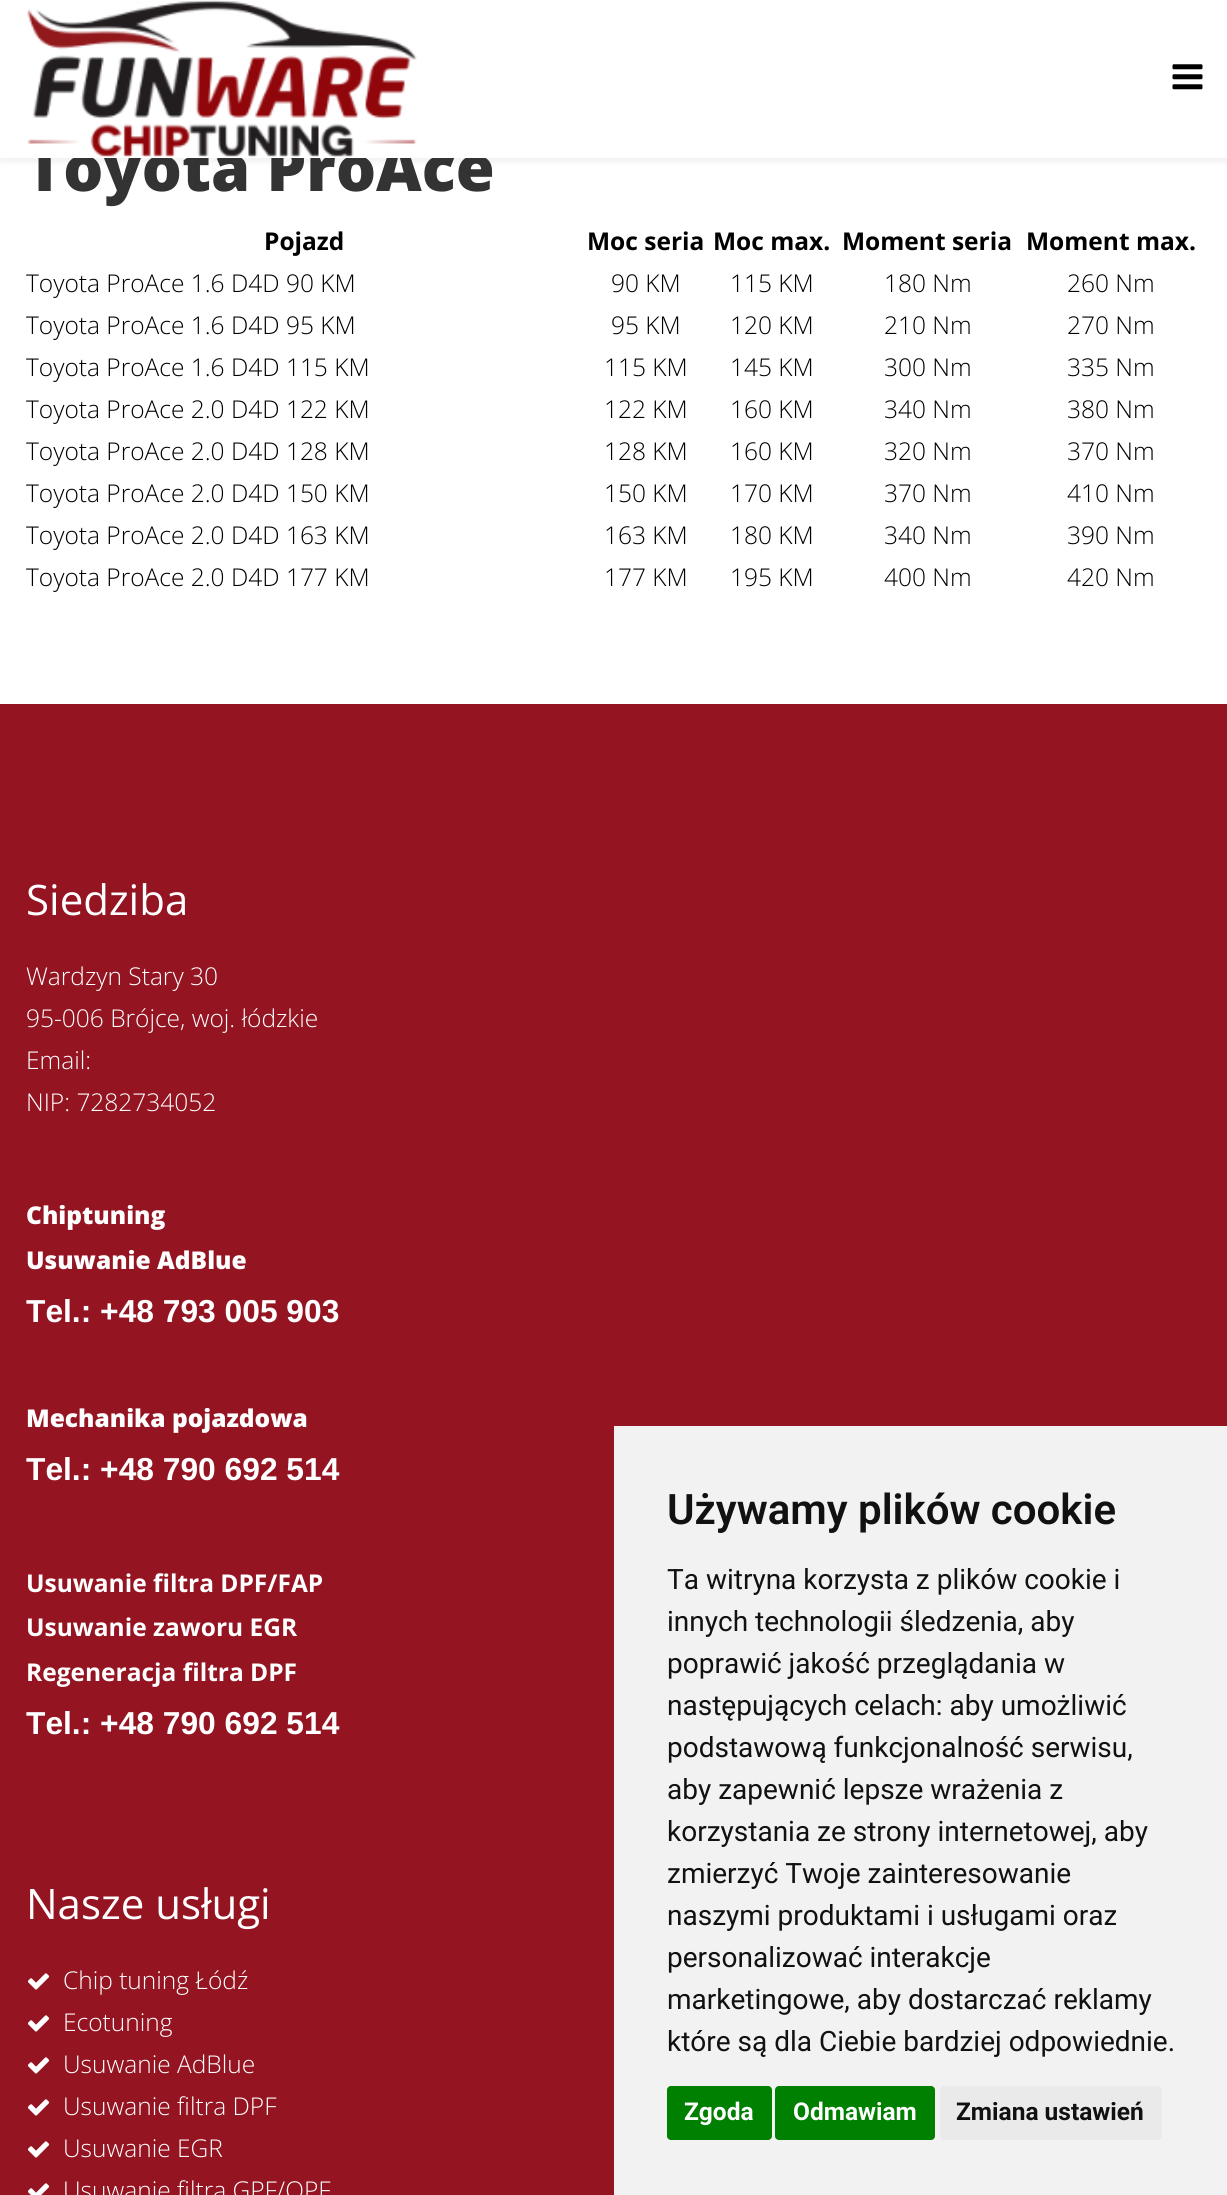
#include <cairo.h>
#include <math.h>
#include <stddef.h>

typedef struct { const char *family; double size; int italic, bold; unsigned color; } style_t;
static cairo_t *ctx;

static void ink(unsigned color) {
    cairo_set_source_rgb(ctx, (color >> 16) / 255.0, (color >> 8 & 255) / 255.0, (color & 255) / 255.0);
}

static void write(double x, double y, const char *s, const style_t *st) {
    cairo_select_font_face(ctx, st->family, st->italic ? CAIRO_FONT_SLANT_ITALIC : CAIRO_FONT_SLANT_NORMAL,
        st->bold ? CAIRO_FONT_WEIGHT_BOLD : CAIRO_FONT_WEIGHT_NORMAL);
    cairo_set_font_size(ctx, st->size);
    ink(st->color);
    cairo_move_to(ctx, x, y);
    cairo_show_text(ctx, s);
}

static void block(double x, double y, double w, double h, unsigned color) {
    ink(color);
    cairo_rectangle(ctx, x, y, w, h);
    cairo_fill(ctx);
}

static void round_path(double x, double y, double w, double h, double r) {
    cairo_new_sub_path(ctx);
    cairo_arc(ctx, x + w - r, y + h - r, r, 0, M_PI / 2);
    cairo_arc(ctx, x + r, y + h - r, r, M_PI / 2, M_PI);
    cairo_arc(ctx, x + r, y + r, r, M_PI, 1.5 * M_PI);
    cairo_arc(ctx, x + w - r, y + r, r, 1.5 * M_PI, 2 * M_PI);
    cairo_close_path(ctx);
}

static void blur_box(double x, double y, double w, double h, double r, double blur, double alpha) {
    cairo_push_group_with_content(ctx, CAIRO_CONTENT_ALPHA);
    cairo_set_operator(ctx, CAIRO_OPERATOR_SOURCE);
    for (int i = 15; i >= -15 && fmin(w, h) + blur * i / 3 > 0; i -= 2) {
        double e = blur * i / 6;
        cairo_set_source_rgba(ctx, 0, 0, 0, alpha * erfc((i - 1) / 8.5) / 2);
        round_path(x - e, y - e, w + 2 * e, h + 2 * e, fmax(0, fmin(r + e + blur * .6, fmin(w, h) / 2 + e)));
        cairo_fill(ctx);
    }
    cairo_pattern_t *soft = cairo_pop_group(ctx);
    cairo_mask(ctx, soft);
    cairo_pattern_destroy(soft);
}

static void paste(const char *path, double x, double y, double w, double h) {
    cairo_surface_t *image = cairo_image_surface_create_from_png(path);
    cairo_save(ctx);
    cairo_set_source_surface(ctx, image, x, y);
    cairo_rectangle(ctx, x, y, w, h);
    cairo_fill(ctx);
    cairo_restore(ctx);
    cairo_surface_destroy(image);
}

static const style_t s1 = {"Open Sans ExtraBold", 63, 0, 0, 0x333333};
static const style_t s2 = {"Open Sans", 24.5, 0, 1, 0x000000};
static const style_t s3 = {"Open Sans Light", 24.5, 0, 0, 0x000000};
static const style_t s4 = {"Open Sans", 42, 0, 0, 0xffffff};
static const style_t s5 = {"Open Sans Light", 24.5, 0, 0, 0xffffff};
static const style_t s6 = {"Open Sans ExtraBold", 24.5, 0, 0, 0xffffff};
static const style_t s7 = {"Liberation Sans", 31.75, 0, 1, 0xffffff};
static const style_t s8 = {"Open Sans", 24.5, 0, 1, 0xffffff};
static const style_t s9 = {"Roboto SemiBold", 42, 0, 0, 0x111111};
static const style_t s10 = {"Roboto", 28, 0, 0, 0x111111};
static const style_t s11 = {"Roboto", 24.5, 0, 1, 0xffffff};
static const style_t s12 = {"Roboto", 24.5, 0, 1, 0x111111};

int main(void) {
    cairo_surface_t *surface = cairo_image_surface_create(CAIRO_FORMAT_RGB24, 1227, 2195);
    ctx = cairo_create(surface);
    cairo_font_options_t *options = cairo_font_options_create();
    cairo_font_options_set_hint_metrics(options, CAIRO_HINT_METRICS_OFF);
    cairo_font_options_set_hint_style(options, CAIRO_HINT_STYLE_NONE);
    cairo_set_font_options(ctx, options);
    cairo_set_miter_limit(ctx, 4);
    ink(0xffffff);
    cairo_paint(ctx);
    ink(0x000000);
    blur_box(0, 5, 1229, 158, 0, 2.5, 0.05);
    write(26, 191, "Toyota ProAce", &s1);
    block(0, 3, 1227, 155, 0xffffff);
    paste("pic1.png", 27, 0, 390, 157);
    paste("pic2.png", 1172, 64, 31, 26);
    write(264, 250, "Pojazd", &s2);
    write(587, 250, "Moc seria", &s2);
    write(713, 250, "Moc max.", &s2);
    write(842, 250, "Moment seria", &s2);
    write(1026, 250, "Moment max.", &s2);
    write(26, 292, "Toyota ProAce 1.6 D4D 90 KM", &s3);
    write(611, 292, "90 KM", &s3);
    write(730, 292, "115 KM", &s3);
    write(884, 292, "180 Nm", &s3);
    write(1067, 292, "260 Nm", &s3);
    write(26, 334, "Toyota ProAce 1.6 D4D 95 KM", &s3);
    write(611, 334, "95 KM", &s3);
    write(730, 334, "120 KM", &s3);
    write(884, 334, "210 Nm", &s3);
    write(1067, 334, "270 Nm", &s3);
    write(26, 376, "Toyota ProAce 1.6 D4D 115 KM", &s3);
    write(604, 376, "115 KM", &s3);
    write(730, 376, "145 KM", &s3);
    write(884, 376, "300 Nm", &s3);
    write(1067, 376, "335 Nm", &s3);
    write(26, 418, "Toyota ProAce 2.0 D4D 122 KM", &s3);
    write(604, 418, "122 KM", &s3);
    write(730, 418, "160 KM", &s3);
    write(884, 418, "340 Nm", &s3);
    write(1067, 418, "380 Nm", &s3);
    write(26, 460, "Toyota ProAce 2.0 D4D 128 KM", &s3);
    write(604, 460, "128 KM", &s3);
    write(730, 460, "160 KM", &s3);
    write(884, 460, "320 Nm", &s3);
    write(1067, 460, "370 Nm", &s3);
    write(26, 502, "Toyota ProAce 2.0 D4D 150 KM", &s3);
    write(604, 502, "150 KM", &s3);
    write(730, 502, "170 KM", &s3);
    write(884, 502, "370 Nm", &s3);
    write(1067, 502, "410 Nm", &s3);
    write(26, 544, "Toyota ProAce 2.0 D4D 163 KM", &s3);
    write(604, 544, "163 KM", &s3);
    write(730, 544, "180 KM", &s3);
    write(884, 544, "340 Nm", &s3);
    write(1067, 544, "390 Nm", &s3);
    write(26, 586, "Toyota ProAce 2.0 D4D 177 KM", &s3);
    write(604, 586, "177 KM", &s3);
    write(730, 586, "195 KM", &s3);
    write(884, 586, "400 Nm", &s3);
    write(1067, 586, "420 Nm", &s3);
    block(0, 704, 1227, 1491, 0x941422);
    write(26, 915, "Siedziba", &s4);
    write(26, 985, "Wardzyn Stary 30", &s5);
    write(26, 1027, "95-006 Brójce, woj. łódzkie", &s5);
    write(26, 1069, "Email:", &s5);
    write(26, 1111, "NIP: 7282734052", &s5);
    write(26, 1224, "Chiptuning", &s6);
    write(26, 1269, "Usuwanie AdBlue", &s6);
    write(26, 1322, "Tel.: +48 793 005 903", &s7);
    write(26, 1427, "Mechanika pojazdowa", &s6);
    write(26, 1480, "Tel.: +48 790 692 514", &s7);
    write(26, 1592, "Usuwanie filtra DPF/FAP", &s8);
    write(26, 1636, "Usuwanie zaworu EGR", &s8);
    write(26, 1681, "Regeneracja filtra DPF", &s8);
    write(26, 1734, "Tel.: +48 790 692 514", &s7);
    write(26, 1919, "Nasze usługi", &s4);
    paste("pic3.png", 27, 1973, 23, 17);
    write(63, 1989, "Chip tuning Łódź", &s5);
    paste("pic3.png", 27, 2015, 23, 17);
    write(63, 2031, "Ecotuning", &s5);
    paste("pic3.png", 27, 2057, 23, 17);
    write(63, 2073, "Usuwanie AdBlue", &s5);
    paste("pic3.png", 27, 2099, 23, 17);
    write(63, 2115, "Usuwanie filtra DPF", &s5);
    paste("pic3.png", 27, 2141, 23, 17);
    write(63, 2157, "Usuwanie EGR", &s5);
    paste("pic4.png", 27, 2183, 23, 12);
    write(63, 2199, "Usuwanie filtra GPF/OPF", &s5);
    block(614, 1426, 613, 769, 0xf2f2f2);
    write(667, 1524, "Używamy plików cookie", &s9);
    write(667, 1589, "Ta witryna korzysta z plików cookie i", &s10);
    write(667, 1631, "innych technologii śledzenia, aby", &s10);
    write(667, 1673, "poprawić jakość przeglądania w", &s10);
    write(667, 1715, "następujących celach: aby umożliwić", &s10);
    write(667, 1757, "podstawową funkcjonalność serwisu,", &s10);
    write(667, 1799, "aby zapewnić lepsze wrażenia z", &s10);
    write(667, 1841, "korzystania ze strony internetowej, aby", &s10);
    write(667, 1883, "zmierzyć Twoje zainteresowanie", &s10);
    write(667, 1925, "naszymi produktami i usługami oraz", &s10);
    write(667, 1967, "personalizować interakcje", &s10);
    write(667, 2009, "marketingowe, aby dostarczać reklamy", &s10);
    write(667, 2051, "które są dla Ciebie bardziej odpowiednie.", &s10);
    ink(0x008000);
    round_path(667, 2086, 105, 54, 4);
    cairo_fill(ctx);
    write(684, 2120, "Zgoda", &s11);
    ink(0x008000);
    round_path(775, 2086, 160, 54, 4);
    cairo_fill(ctx);
    write(793, 2120, "Odmawiam", &s11);
    ink(0xeaeaea);
    round_path(940, 2086, 222, 54, 4);
    cairo_fill(ctx);
    write(956, 2120, "Zmiana ustawień", &s12);
    cairo_surface_write_to_png(surface, "screenshot.png");
    cairo_font_options_destroy(options);
    cairo_destroy(ctx);
    cairo_surface_destroy(surface);
    return 0;
}
